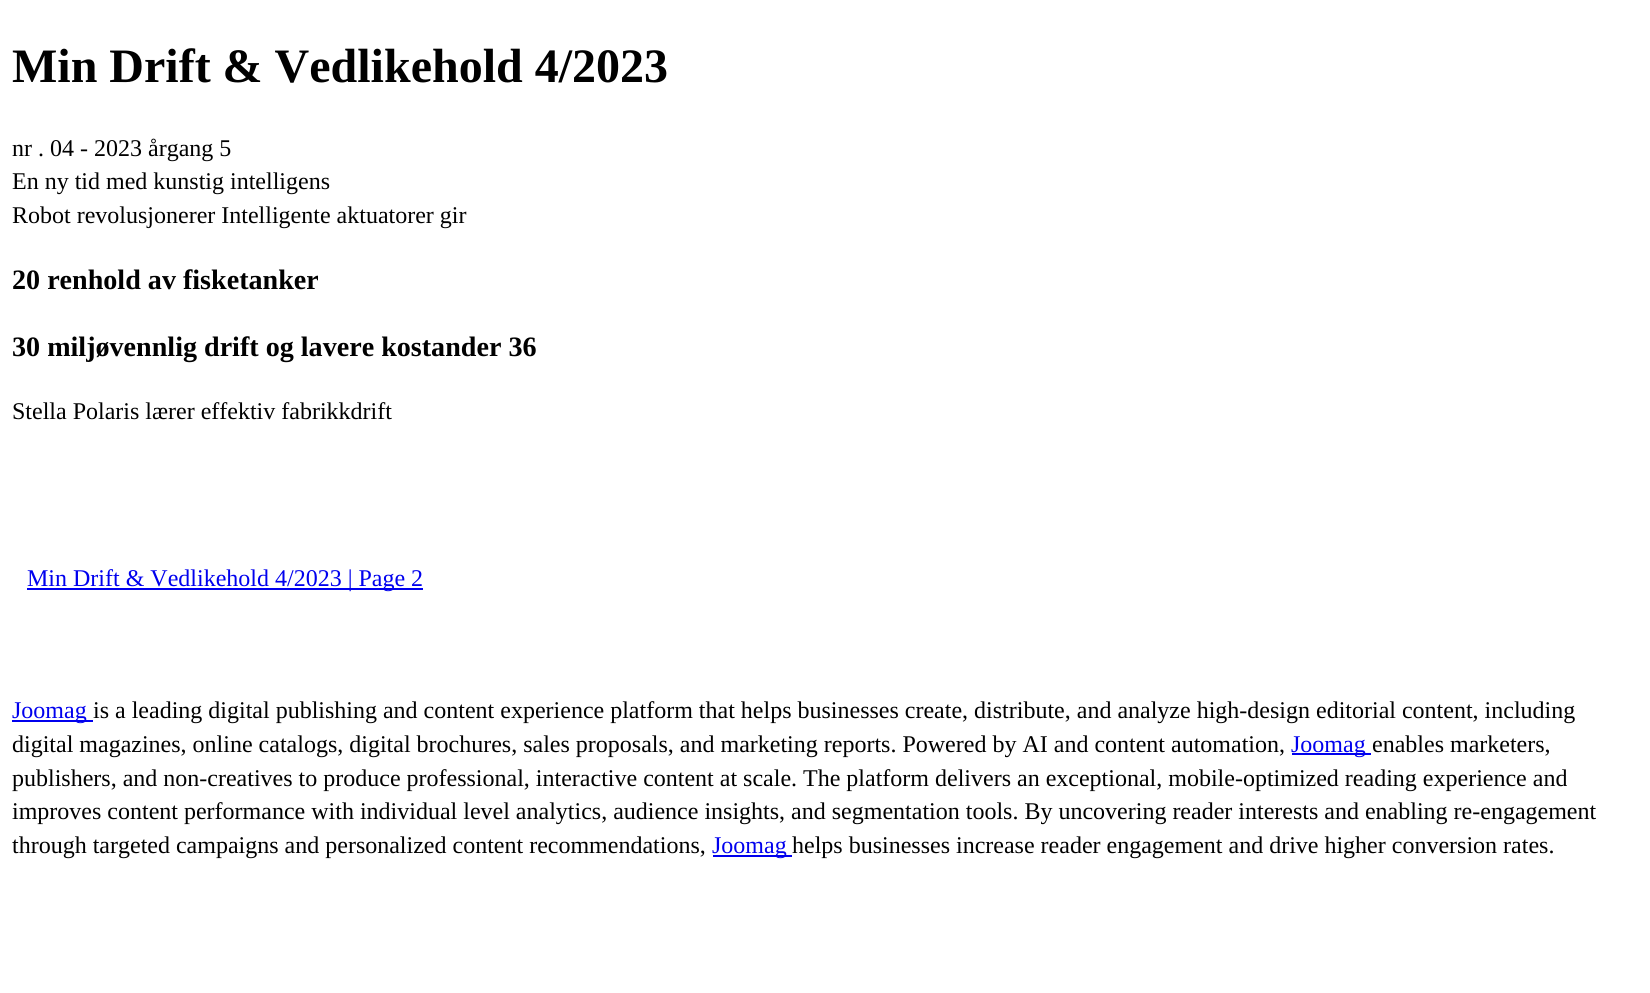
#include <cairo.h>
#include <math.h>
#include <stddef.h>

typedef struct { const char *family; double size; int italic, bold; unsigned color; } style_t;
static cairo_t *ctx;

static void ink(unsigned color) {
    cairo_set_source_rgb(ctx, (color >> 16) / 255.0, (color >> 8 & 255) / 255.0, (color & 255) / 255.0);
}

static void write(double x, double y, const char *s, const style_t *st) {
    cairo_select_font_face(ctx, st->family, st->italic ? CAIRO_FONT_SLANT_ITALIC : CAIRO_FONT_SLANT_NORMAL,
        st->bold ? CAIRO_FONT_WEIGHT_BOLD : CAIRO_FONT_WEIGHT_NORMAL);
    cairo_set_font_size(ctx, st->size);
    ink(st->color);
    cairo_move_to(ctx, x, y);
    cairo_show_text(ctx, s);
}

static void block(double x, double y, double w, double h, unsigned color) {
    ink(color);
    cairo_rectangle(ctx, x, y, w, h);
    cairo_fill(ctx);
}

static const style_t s1 = {"Liberation Serif", 48, 0, 1, 0x000000};
static const style_t s2 = {"Liberation Serif", 24, 0, 0, 0x000000};
static const style_t s3 = {"Liberation Serif", 28.1, 0, 1, 0x000000};
static const style_t s4 = {"Liberation Serif", 24, 0, 0, 0x0000ee};

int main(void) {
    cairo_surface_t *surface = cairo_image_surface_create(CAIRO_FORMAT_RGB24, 1650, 993);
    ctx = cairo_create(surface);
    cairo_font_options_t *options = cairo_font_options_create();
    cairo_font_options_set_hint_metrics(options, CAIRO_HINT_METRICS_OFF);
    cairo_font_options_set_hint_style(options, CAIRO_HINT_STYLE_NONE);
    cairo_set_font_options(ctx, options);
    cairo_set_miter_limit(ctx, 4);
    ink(0xffffff);
    cairo_paint(ctx);
    write(12, 82, "Min Drift & Vedlikehold 4/2023", &s1);
    write(12, 156, "nr . 04 - 2023 årgang 5", &s2);
    write(12, 189, "En ny tid med kunstig intelligens", &s2);
    write(12, 223, "Robot revolusjonerer Intelligente aktuatorer gir", &s2);
    write(12, 289, "20 renhold av fisketanker", &s3);
    write(12, 356, "30 miljøvennlig drift og lavere kostander 36", &s3);
    write(12, 419, "Stella Polaris lærer effektiv fabrikkdrift", &s2);
    block(27, 588, 396, 2, 0x0000ee);
    write(27, 586, "Min Drift & Vedlikehold 4/2023 | Page 2", &s4);
    block(12, 720, 81, 2, 0x0000ee);
    write(12, 718, "Joomag", &s4);
    write(93, 718, "is a leading digital publishing and content experience platform that helps businesses create, distribute, and analyze high-design editorial content, including", &s2);
    write(12, 752, "digital magazines, online catalogs, digital brochures, sales proposals, and marketing reports. Powered by AI and content automation,", &s2);
    block(1292, 753, 79, 2, 0x0000ee);
    write(1291, 752, "Joomag", &s4);
    write(1372, 752, "enables marketers,", &s2);
    write(12, 786, "publishers, and non-creatives to produce professional, interactive content at scale. The platform delivers an exceptional, mobile-optimized reading experience and", &s2);
    write(12, 819, "improves content performance with individual level analytics, audience insights, and segmentation tools. By uncovering reader interests and enabling re-engagement", &s2);
    write(12, 853, "through targeted campaigns and personalized content recommendations,", &s2);
    block(713, 855, 79, 2, 0x0000ee);
    write(712, 853, "Joomag", &s4);
    write(792, 853, "helps businesses increase reader engagement and drive higher conversion rates.", &s2);
    cairo_surface_write_to_png(surface, "screenshot.png");
    cairo_font_options_destroy(options);
    cairo_destroy(ctx);
    cairo_surface_destroy(surface);
    return 0;
}
